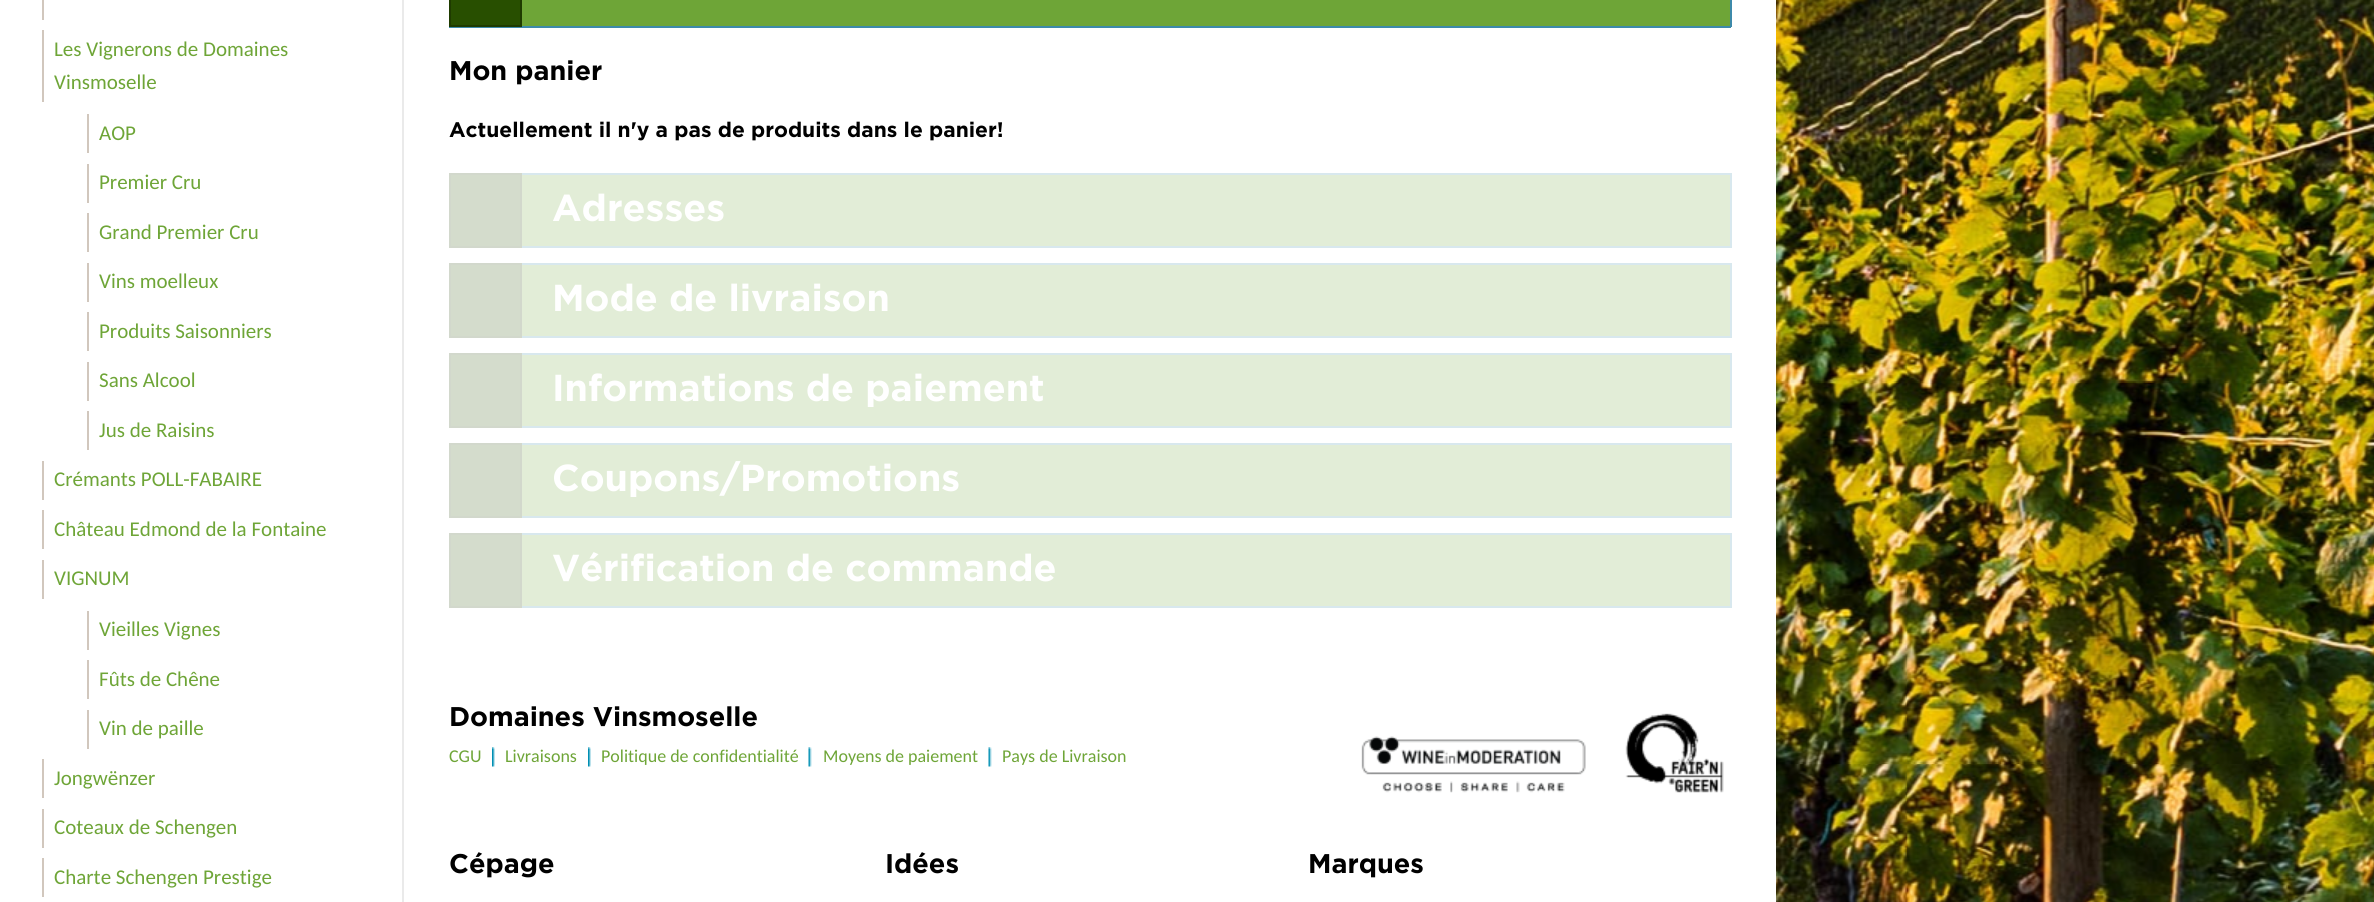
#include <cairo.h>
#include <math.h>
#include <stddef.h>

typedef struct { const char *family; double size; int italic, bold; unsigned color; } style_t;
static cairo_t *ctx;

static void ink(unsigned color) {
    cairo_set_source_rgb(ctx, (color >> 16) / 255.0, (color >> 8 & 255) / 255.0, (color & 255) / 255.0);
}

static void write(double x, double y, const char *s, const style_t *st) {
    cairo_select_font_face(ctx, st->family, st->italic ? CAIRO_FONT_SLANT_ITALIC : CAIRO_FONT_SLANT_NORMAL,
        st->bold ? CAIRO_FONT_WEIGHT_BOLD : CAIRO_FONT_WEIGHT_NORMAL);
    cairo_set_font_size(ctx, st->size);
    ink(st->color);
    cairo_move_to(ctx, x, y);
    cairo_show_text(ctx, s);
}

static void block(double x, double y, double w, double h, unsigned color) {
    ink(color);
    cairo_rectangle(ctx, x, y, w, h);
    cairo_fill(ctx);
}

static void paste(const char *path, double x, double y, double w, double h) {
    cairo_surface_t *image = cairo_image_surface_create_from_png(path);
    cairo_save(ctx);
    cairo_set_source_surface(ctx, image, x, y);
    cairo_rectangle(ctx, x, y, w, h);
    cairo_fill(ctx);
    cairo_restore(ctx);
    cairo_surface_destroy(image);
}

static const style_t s1 = {"Carlito", 21, 0, 0, 0x6ea537};
static const style_t s2 = {"Gotham", 27, 0, 1, 0x000000};
static const style_t s3 = {"Gotham", 21, 0, 1, 0x000000};
static const style_t s4 = {"Gotham", 37.5, 0, 1, 0xffffff};
static const style_t s5 = {"Carlito", 18, 0, 0, 0x6ea537};

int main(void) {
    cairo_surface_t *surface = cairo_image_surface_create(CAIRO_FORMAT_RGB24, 2374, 902);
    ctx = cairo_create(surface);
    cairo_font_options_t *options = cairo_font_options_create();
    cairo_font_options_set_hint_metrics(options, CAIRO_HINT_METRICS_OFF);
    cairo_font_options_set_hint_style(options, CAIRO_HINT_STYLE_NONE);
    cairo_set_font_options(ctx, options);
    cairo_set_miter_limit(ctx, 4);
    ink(0xffffff);
    cairo_paint(ctx);
    paste("pic1.png", 1776, 0, 598, 902);
    block(402, 0, 2, 902, 0xeaeaea);
    block(42, 0, 2, 20, 0xd1c7bd);
    block(42, 30, 2, 72, 0xd1c7bd);
    write(54, 56, "Les Vignerons de Domaines", &s1);
    write(54, 89, "Vinsmoselle", &s1);
    block(87, 114, 2, 39, 0xd1c7bd);
    write(99, 140, "AOP", &s1);
    block(87, 164, 2, 39, 0xd1c7bd);
    write(99, 189, "Premier Cru", &s1);
    block(87, 213, 2, 39, 0xd1c7bd);
    write(99, 239, "Grand Premier Cru", &s1);
    block(87, 263, 2, 39, 0xd1c7bd);
    write(99, 288, "Vins moelleux", &s1);
    block(87, 312, 2, 39, 0xd1c7bd);
    write(99, 338, "Produits Saisonniers", &s1);
    block(87, 362, 2, 39, 0xd1c7bd);
    write(99, 387, "Sans Alcool", &s1);
    block(87, 411, 2, 39, 0xd1c7bd);
    write(99, 437, "Jus de Raisins", &s1);
    block(42, 461, 2, 39, 0xd1c7bd);
    write(54, 486, "Crémants POLL-FABAIRE", &s1);
    block(42, 510, 2, 39, 0xd1c7bd);
    write(54, 536, "Château Edmond de la Fontaine", &s1);
    block(42, 560, 2, 39, 0xd1c7bd);
    write(54, 585, "VIGNUM", &s1);
    block(87, 611, 2, 39, 0xd1c7bd);
    write(99, 636, "Vieilles Vignes", &s1);
    block(87, 660, 2, 39, 0xd1c7bd);
    write(99, 686, "Fûts de Chêne", &s1);
    block(87, 710, 2, 39, 0xd1c7bd);
    write(99, 735, "Vin de paille", &s1);
    block(42, 759, 2, 39, 0xd1c7bd);
    write(54, 785, "Jongwënzer", &s1);
    block(42, 809, 2, 39, 0xd1c7bd);
    write(54, 834, "Coteaux de Schengen", &s1);
    block(42, 858, 2, 39, 0xd1c7bd);
    write(54, 884, "Charte Schengen Prestige", &s1);
    block(522, 0, 1208, 26, 0x6ea537);
    block(1730, 0, 2, 27, 0x3d8aaa);
    block(449, 26, 1282, 2, 0x3d8aaa);
    ink(0x284f00);
    cairo_rectangle(ctx, 450, -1, 71, 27);
    cairo_fill_preserve(ctx);
    ink(0x1f3b00);
    cairo_stroke(ctx);
    write(449, 80, "Mon panier", &s2);
    write(449, 137, "Actuellement il n'y a pas de produits dans le panier!", &s3);
    block(522, 175, 1208, 71, 0xe2edd7);
    block(522, 173, 1209, 2, 0xd8e8ee);
    block(1730, 173, 2, 75, 0xd8e8ee);
    block(522, 246, 1209, 2, 0xd8e8ee);
    ink(0xd4dccc);
    cairo_rectangle(ctx, 450, 174, 71, 73);
    cairo_fill_preserve(ctx);
    ink(0xd2d8cc);
    cairo_stroke(ctx);
    write(552, 221, "Adresses", &s4);
    block(522, 265, 1208, 71, 0xe2edd7);
    block(522, 263, 1209, 2, 0xd8e8ee);
    block(1730, 263, 2, 75, 0xd8e8ee);
    block(522, 336, 1209, 2, 0xd8e8ee);
    ink(0xd4dccc);
    cairo_rectangle(ctx, 450, 264, 71, 73);
    cairo_fill_preserve(ctx);
    ink(0xd2d8cc);
    cairo_stroke(ctx);
    write(552, 311, "Mode de livraison", &s4);
    block(522, 355, 1208, 71, 0xe2edd7);
    block(522, 353, 1209, 2, 0xd8e8ee);
    block(1730, 353, 2, 75, 0xd8e8ee);
    block(522, 426, 1209, 2, 0xd8e8ee);
    ink(0xd4dccc);
    cairo_rectangle(ctx, 450, 354, 71, 73);
    cairo_fill_preserve(ctx);
    ink(0xd2d8cc);
    cairo_stroke(ctx);
    write(552, 401, "Informations de paiement", &s4);
    block(522, 445, 1208, 71, 0xe2edd7);
    block(522, 443, 1209, 2, 0xd8e8ee);
    block(1730, 443, 2, 75, 0xd8e8ee);
    block(522, 516, 1209, 2, 0xd8e8ee);
    ink(0xd4dccc);
    cairo_rectangle(ctx, 450, 444, 71, 73);
    cairo_fill_preserve(ctx);
    ink(0xd2d8cc);
    cairo_stroke(ctx);
    write(552, 491, "Coupons/Promotions", &s4);
    block(522, 535, 1208, 71, 0xe2edd7);
    block(522, 533, 1209, 2, 0xd8e8ee);
    block(1730, 533, 2, 75, 0xd8e8ee);
    block(522, 606, 1209, 2, 0xd8e8ee);
    ink(0xd4dccc);
    cairo_rectangle(ctx, 450, 534, 71, 73);
    cairo_fill_preserve(ctx);
    ink(0xd2d8cc);
    cairo_stroke(ctx);
    write(552, 581, "Vérification de commande", &s4);
    write(449, 726, "Domaines Vinsmoselle", &s2);
    paste("pic2.png", 492, 747, 3, 20);
    write(449, 762, "CGU", &s5);
    paste("pic2.png", 588, 747, 3, 20);
    write(505, 762, "Livraisons", &s5);
    paste("pic3.png", 808, 747, 4, 20);
    write(601, 762, "Politique de confidentialité", &s5);
    paste("pic3.png", 988, 747, 4, 20);
    write(823, 762, "Moyens de paiement", &s5);
    write(1002, 762, "Pays de Livraison", &s5);
    paste("pic4.png", 1361, 713, 363, 80);
    write(449, 873, "Cépage", &s2);
    write(885, 873, "Idées", &s2);
    write(1308, 873, "Marques", &s2);
    cairo_surface_write_to_png(surface, "screenshot.png");
    cairo_font_options_destroy(options);
    cairo_destroy(ctx);
    cairo_surface_destroy(surface);
    return 0;
}
